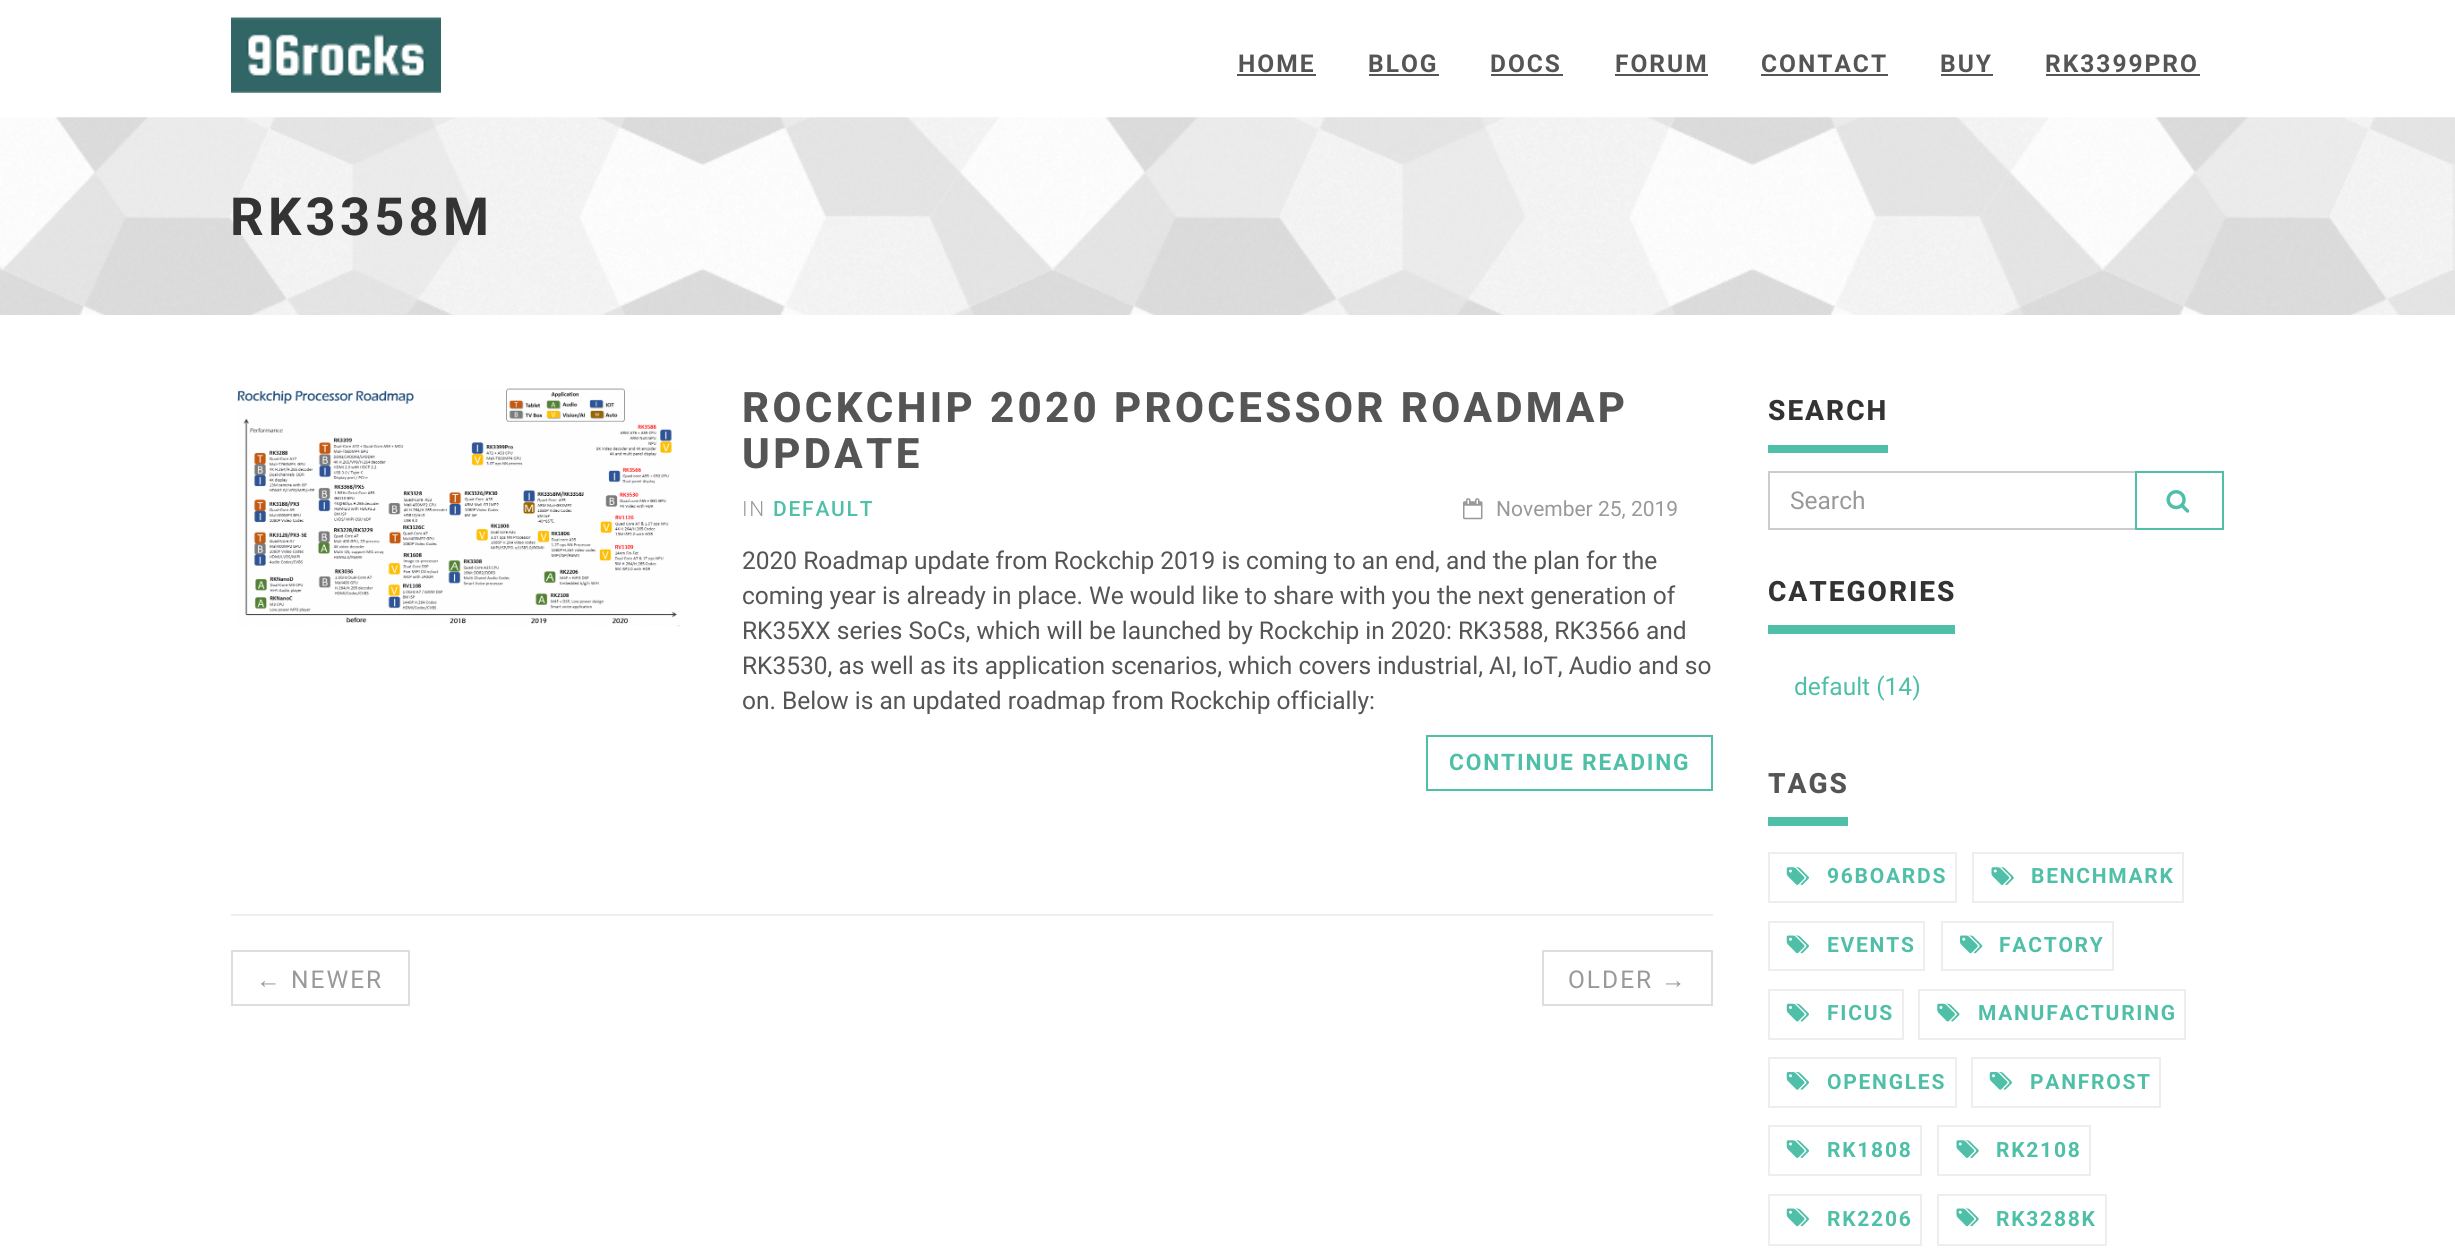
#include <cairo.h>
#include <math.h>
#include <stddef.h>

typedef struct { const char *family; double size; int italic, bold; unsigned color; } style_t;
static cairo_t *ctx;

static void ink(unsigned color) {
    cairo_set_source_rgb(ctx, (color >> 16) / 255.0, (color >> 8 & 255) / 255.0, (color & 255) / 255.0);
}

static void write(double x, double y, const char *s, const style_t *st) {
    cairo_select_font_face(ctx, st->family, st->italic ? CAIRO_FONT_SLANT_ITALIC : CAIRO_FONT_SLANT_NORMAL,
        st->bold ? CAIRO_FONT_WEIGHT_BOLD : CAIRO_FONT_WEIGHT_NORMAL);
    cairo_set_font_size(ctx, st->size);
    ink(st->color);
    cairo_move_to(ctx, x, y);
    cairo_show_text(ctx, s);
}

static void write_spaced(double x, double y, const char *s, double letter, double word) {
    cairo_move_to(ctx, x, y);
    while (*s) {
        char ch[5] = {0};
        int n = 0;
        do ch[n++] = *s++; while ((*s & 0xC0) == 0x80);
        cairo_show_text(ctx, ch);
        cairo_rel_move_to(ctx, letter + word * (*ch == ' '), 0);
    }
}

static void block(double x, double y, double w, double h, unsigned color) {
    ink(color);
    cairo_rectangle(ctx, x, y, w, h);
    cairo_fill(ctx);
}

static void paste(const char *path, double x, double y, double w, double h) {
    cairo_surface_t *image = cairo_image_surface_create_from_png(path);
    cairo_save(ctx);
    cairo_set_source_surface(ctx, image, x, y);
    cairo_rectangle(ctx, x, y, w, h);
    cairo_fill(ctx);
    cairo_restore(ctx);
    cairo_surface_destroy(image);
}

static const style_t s1 = {"Roboto", 21, 0, 0, 0x999999};
static const style_t s2 = {"Roboto", 24.5, 0, 0, 0x555555};
static const style_t s3 = {"Roboto", 24.5, 0, 0, 0x999999};
static const style_t s4 = {"Roboto", 24.5, 0, 0, 0x4fbfa8};

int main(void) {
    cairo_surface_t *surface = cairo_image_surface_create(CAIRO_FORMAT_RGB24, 2455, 1256);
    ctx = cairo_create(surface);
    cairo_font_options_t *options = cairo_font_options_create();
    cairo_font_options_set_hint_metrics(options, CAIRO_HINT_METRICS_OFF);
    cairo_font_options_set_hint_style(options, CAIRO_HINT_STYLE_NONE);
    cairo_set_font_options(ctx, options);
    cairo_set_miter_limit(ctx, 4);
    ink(0xffffff);
    cairo_paint(ctx);
    paste("pic1.png", 231, 17, 210, 76);
    cairo_select_font_face(ctx, "Roboto", CAIRO_FONT_SLANT_NORMAL, CAIRO_FONT_WEIGHT_BOLD);
    cairo_set_font_size(ctx, 24.5);
    ink(0x555555);
    write_spaced(1238, 72, "HOME", 2, 0);
    block(1237, 74, 79, 2, 0x555555);
    write_spaced(1368, 72, "BLOG", 2, 0);
    block(1369, 74, 70, 2, 0x555555);
    write_spaced(1490, 72, "DOCS", 2, 0);
    block(1491, 74, 72, 2, 0x555555);
    write_spaced(1615, 72, "FORUM", 2, 0);
    block(1615, 74, 93, 2, 0x555555);
    write_spaced(1761, 72, "CONTACT", 2, 0);
    block(1761, 74, 127, 2, 0x555555);
    write_spaced(1940, 72, "BUY", 2, 0);
    block(1941, 74, 52, 2, 0x555555);
    write_spaced(2045, 72, "RK3399PRO", 2, 0);
    block(2046, 74, 154, 2, 0x555555);
    paste("pic2.png", 0, 117, 2455, 198);
    cairo_set_font_size(ctx, 52.5);
    ink(0x333333);
    write_spaced(230, 235, "RK3358M", 4.25, 0);
    paste("pic3.png", 237, 388, 444, 239);
    cairo_select_font_face(ctx, "Roboto ExtraBold", CAIRO_FONT_SLANT_NORMAL, CAIRO_FONT_WEIGHT_NORMAL);
    cairo_set_font_size(ctx, 42);
    ink(0x555555);
    write_spaced(742, 422, "ROCKCHIP 2020 PROCESSOR ROADMAP", 3.35, 0);
    write_spaced(742, 468, "UPDATE", 3.35, 0);
    cairo_select_font_face(ctx, "Roboto Light", CAIRO_FONT_SLANT_NORMAL, CAIRO_FONT_WEIGHT_NORMAL);
    cairo_set_font_size(ctx, 21);
    ink(0x999999);
    write_spaced(742, 516, "IN", 1.75, 0);
    cairo_select_font_face(ctx, "Roboto Medium", CAIRO_FONT_SLANT_NORMAL, CAIRO_FONT_WEIGHT_NORMAL);
    ink(0x4fbfa8);
    write_spaced(773, 516, "DEFAULT", 1.75, 0);
    paste("pic4.png", 1463, 498, 20, 22);
    write(1496, 516, "November 25, 2019", &s1);
    write(742, 569, "2020 Roadmap update from Rockchip 2019 is coming to an end, and the plan for the", &s2);
    write(742, 604, "coming year is already in place. We would like to share with you the next generation of", &s2);
    write(742, 639, "RK35XX series SoCs, which will be launched by Rockchip in 2020: RK3588, RK3566 and", &s2);
    write(742, 674, "RK3530, as well as its application scenarios, which covers industrial, AI, IoT, Audio and so", &s2);
    write(742, 709, "on. Below is an updated roadmap from Rockchip officially:", &s2);
    cairo_rectangle(ctx, 1427, 736, 285, 54);
    ink(0x4fbfa8);
    cairo_stroke(ctx);
    cairo_select_font_face(ctx, "Roboto", CAIRO_FONT_SLANT_NORMAL, CAIRO_FONT_WEIGHT_BOLD);
    cairo_set_font_size(ctx, 22.75);
    write_spaced(1449, 770, "CONTINUE READING", 1.8, 0);
    block(231, 914, 1482, 2, 0xeeeeee);
    cairo_rectangle(ctx, 232, 951, 177, 54);
    ink(0xdddddd);
    cairo_stroke(ctx);
    cairo_select_font_face(ctx, "Liberation Sans", CAIRO_FONT_SLANT_NORMAL, CAIRO_FONT_WEIGHT_NORMAL);
    cairo_set_font_size(ctx, 24.5);
    ink(0x999999);
    write_spaced(256, 988, "←", 2, 0);
    cairo_select_font_face(ctx, "Roboto", CAIRO_FONT_SLANT_NORMAL, CAIRO_FONT_WEIGHT_NORMAL);
    write_spaced(291, 988, "NEWER", 2, 0);
    cairo_rectangle(ctx, 1543, 951, 169, 54);
    ink(0xdddddd);
    cairo_stroke(ctx);
    ink(0x999999);
    write_spaced(1568, 988, "OLDER", 2, 0);
    cairo_select_font_face(ctx, "Liberation Sans", CAIRO_FONT_SLANT_NORMAL, CAIRO_FONT_WEIGHT_NORMAL);
    write_spaced(1661, 988, "→", 2, 0);
    block(1768, 445, 120, 8, 0x4fbfa8);
    cairo_select_font_face(ctx, "Roboto ExtraBold", CAIRO_FONT_SLANT_NORMAL, CAIRO_FONT_WEIGHT_NORMAL);
    cairo_set_font_size(ctx, 28);
    ink(0x333333);
    write_spaced(1768, 420, "SEARCH", 2, 0);
    cairo_rectangle(ctx, 1769, 472, 367, 57);
    ink(0xcccccc);
    cairo_stroke(ctx);
    write(1790, 509, "Search", &s3);
    cairo_rectangle(ctx, 2136, 472, 87, 57);
    ink(0x4fbfa8);
    cairo_stroke(ctx);
    paste("pic5.png", 2166, 490, 24, 23);
    block(1768, 625, 187, 9, 0x4fbfa8);
    cairo_select_font_face(ctx, "Roboto ExtraBold", CAIRO_FONT_SLANT_NORMAL, CAIRO_FONT_WEIGHT_NORMAL);
    cairo_set_font_size(ctx, 28);
    ink(0x333333);
    write_spaced(1768, 601, "CATEGORIES", 2, 0);
    write(1794, 695, "default (14)", &s4);
    block(1768, 817, 80, 9, 0x4fbfa8);
    cairo_select_font_face(ctx, "Roboto ExtraBold", CAIRO_FONT_SLANT_NORMAL, CAIRO_FONT_WEIGHT_NORMAL);
    cairo_set_font_size(ctx, 28);
    ink(0x555555);
    write_spaced(1768, 793, "TAGS", 2, 0);
    cairo_rectangle(ctx, 1769, 853, 187, 49);
    ink(0xeeeeee);
    cairo_stroke(ctx);
    paste("pic6.png", 1786, 867, 23, 18);
    cairo_select_font_face(ctx, "Roboto", CAIRO_FONT_SLANT_NORMAL, CAIRO_FONT_WEIGHT_BOLD);
    cairo_set_font_size(ctx, 21);
    ink(0x4fbfa8);
    write_spaced(1827, 883, "96BOARDS", 1.75, 0);
    cairo_rectangle(ctx, 1973, 853, 210, 49);
    ink(0xeeeeee);
    cairo_stroke(ctx);
    paste("pic7.png", 1991, 867, 23, 18);
    ink(0x4fbfa8);
    write_spaced(2031, 883, "BENCHMARK", 1.75, 0);
    cairo_rectangle(ctx, 1769, 922, 155, 48);
    ink(0xeeeeee);
    cairo_stroke(ctx);
    paste("pic8.png", 1786, 935, 23, 19);
    ink(0x4fbfa8);
    write_spaced(1827, 952, "EVENTS", 1.75, 0);
    cairo_rectangle(ctx, 1942, 922, 171, 48);
    ink(0xeeeeee);
    cairo_stroke(ctx);
    paste("pic9.png", 1960, 935, 23, 19);
    ink(0x4fbfa8);
    write_spaced(1999, 952, "FACTORY", 1.75, 0);
    cairo_rectangle(ctx, 1769, 990, 134, 49);
    ink(0xeeeeee);
    cairo_stroke(ctx);
    paste("pic10.png", 1786, 1003, 23, 19);
    ink(0x4fbfa8);
    write_spaced(1827, 1020, "FICUS", 1.75, 0);
    cairo_rectangle(ctx, 1919, 990, 266, 49);
    ink(0xeeeeee);
    cairo_stroke(ctx);
    paste("pic11.png", 1937, 1003, 23, 19);
    ink(0x4fbfa8);
    write_spaced(1978, 1020, "MANUFACTURING", 1.75, 0);
    cairo_rectangle(ctx, 1769, 1058, 187, 49);
    ink(0xeeeeee);
    cairo_stroke(ctx);
    paste("pic12.png", 1786, 1072, 23, 18);
    ink(0x4fbfa8);
    write_spaced(1827, 1089, "OPENGLES", 1.75, 0);
    cairo_rectangle(ctx, 1972, 1058, 188, 49);
    ink(0xeeeeee);
    cairo_stroke(ctx);
    paste("pic12.png", 1989, 1072, 23, 18);
    ink(0x4fbfa8);
    write_spaced(2030, 1089, "PANFROST", 1.75, 0);
    cairo_rectangle(ctx, 1769, 1126, 152, 49);
    ink(0xeeeeee);
    cairo_stroke(ctx);
    paste("pic6.png", 1786, 1140, 23, 18);
    ink(0x4fbfa8);
    write_spaced(1827, 1157, "RK1808", 1.75, 0);
    cairo_rectangle(ctx, 1938, 1126, 152, 49);
    ink(0xeeeeee);
    cairo_stroke(ctx);
    paste("pic7.png", 1956, 1140, 23, 18);
    ink(0x4fbfa8);
    write_spaced(1996, 1157, "RK2108", 1.75, 0);
    cairo_rectangle(ctx, 1769, 1195, 152, 50);
    ink(0xeeeeee);
    cairo_stroke(ctx);
    paste("pic13.png", 1786, 1208, 23, 19);
    ink(0x4fbfa8);
    write_spaced(1827, 1226, "RK2206", 1.75, 0);
    cairo_rectangle(ctx, 1938, 1195, 168, 50);
    ink(0xeeeeee);
    cairo_stroke(ctx);
    paste("pic14.png", 1956, 1208, 23, 19);
    ink(0x4fbfa8);
    write_spaced(1996, 1226, "RK3288K", 1.75, 0);
    cairo_surface_write_to_png(surface, "screenshot.png");
    cairo_font_options_destroy(options);
    cairo_destroy(ctx);
    cairo_surface_destroy(surface);
    return 0;
}
